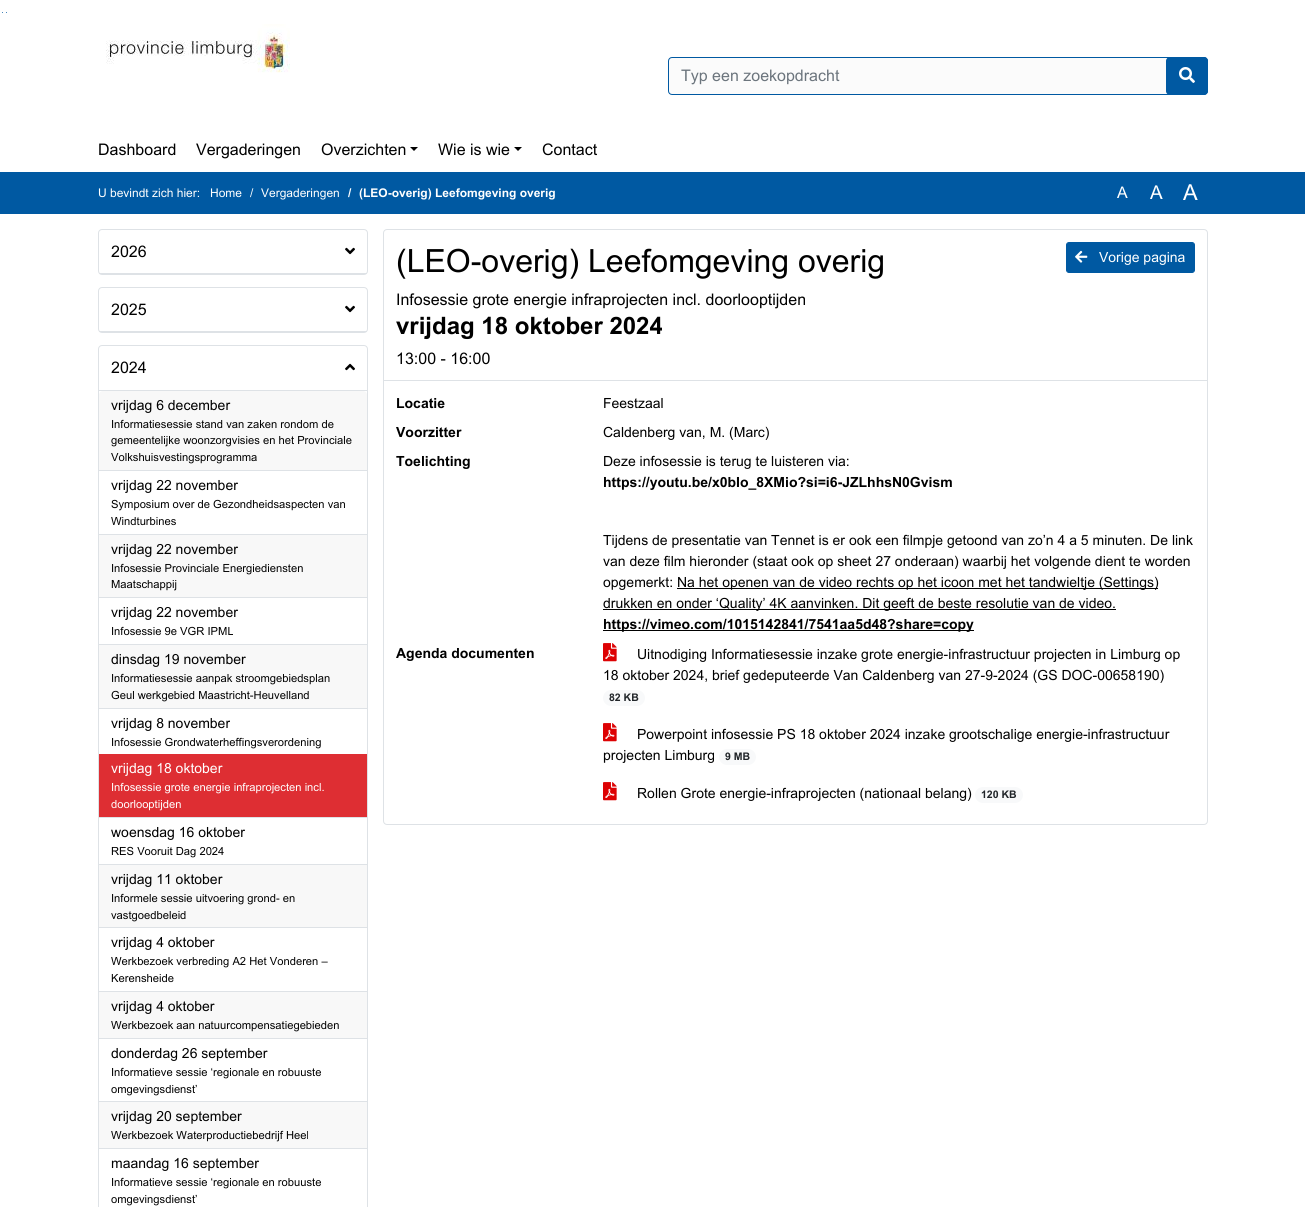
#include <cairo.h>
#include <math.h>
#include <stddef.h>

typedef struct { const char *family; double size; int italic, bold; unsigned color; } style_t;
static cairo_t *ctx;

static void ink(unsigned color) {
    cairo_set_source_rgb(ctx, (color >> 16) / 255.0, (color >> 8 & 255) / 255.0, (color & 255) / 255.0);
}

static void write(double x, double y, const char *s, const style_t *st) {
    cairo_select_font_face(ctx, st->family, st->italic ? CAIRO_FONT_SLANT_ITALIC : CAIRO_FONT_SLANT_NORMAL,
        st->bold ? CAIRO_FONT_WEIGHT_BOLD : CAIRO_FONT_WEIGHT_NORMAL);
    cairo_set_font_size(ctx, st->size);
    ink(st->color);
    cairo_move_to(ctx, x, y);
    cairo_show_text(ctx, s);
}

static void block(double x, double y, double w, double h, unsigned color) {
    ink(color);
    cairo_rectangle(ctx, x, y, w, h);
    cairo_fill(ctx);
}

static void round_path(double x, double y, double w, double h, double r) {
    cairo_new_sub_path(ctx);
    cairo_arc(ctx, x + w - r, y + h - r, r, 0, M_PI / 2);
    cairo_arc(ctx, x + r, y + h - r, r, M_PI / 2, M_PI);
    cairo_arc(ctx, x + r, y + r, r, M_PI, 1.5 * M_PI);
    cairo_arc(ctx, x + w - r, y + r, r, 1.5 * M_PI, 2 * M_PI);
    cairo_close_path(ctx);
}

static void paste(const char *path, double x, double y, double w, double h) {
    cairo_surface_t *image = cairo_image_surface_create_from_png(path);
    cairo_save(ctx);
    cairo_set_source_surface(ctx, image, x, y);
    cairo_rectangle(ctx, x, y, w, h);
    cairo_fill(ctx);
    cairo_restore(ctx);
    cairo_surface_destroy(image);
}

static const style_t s1 = {"Arial", 16, 0, 0, 0x6c757d};
static const style_t s2 = {"Arial", 16, 0, 0, 0x000000};
static const style_t s3 = {"Arial", 12, 0, 0, 0xffffff};
static const style_t s4 = {"Arial", 12, 0, 1, 0xffffff};
static const style_t s5 = {"Arial", 16, 0, 0, 0xffffff};
static const style_t s6 = {"Arial", 19, 0, 0, 0xffffff};
static const style_t s7 = {"Arial", 22, 0, 0, 0xffffff};
static const style_t s8 = {"Arial", 14, 0, 0, 0x000000};
static const style_t s9 = {"Arial", 11.2, 0, 0, 0x000000};
static const style_t s10 = {"Arial", 14, 0, 0, 0xffffff};
static const style_t s11 = {"Arial", 11.2, 0, 0, 0xffffff};
static const style_t s12 = {"Arial", 32, 0, 0, 0x000000};
static const style_t s13 = {"Arial", 24, 0, 1, 0x000000};
static const style_t s14 = {"Arial", 14, 0, 1, 0x000000};
static const style_t s15 = {"Arial", 10.5, 0, 1, 0x212529};

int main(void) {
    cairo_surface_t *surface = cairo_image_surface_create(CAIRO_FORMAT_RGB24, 1305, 1207);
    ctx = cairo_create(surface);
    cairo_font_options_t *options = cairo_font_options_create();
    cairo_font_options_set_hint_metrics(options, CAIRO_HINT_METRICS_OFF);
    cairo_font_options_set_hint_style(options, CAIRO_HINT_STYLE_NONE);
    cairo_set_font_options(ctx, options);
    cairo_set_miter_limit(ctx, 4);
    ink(0xffffff);
    cairo_paint(ctx);
    ink(0x0059a2);
    cairo_arc(ctx, 2.5, 12.5, 0.5, 0, 2 * M_PI);
    cairo_fill(ctx);
    cairo_arc(ctx, 6.5, 12.5, 0.5, 0, 2 * M_PI);
    cairo_fill(ctx);
    paste("pic1.png", 106, 24, 184, 49);
    ink(0xfbfbfb);
    round_path(668.5, 57.5, 539, 37, 3.5);
    cairo_fill_preserve(ctx);
    ink(0x0059a2);
    cairo_set_line_width(ctx, 1);
    cairo_stroke(ctx);
    write(681, 81, "Typ een zoekopdracht", &s1);
    ink(0x0059a2);
    round_path(1166, 57, 42, 38, 4);
    cairo_fill(ctx);
    paste("pic2.png", 1179, 67, 16, 16);
    write(98, 155, "Dashboard", &s2);
    write(196, 155, "Vergaderingen", &s2);
    write(321, 155, "Overzichten", &s2);
    cairo_new_path(ctx);
    cairo_move_to(ctx, 410, 147);
    cairo_line_to(ctx, 418, 147);
    cairo_line_to(ctx, 414, 151);
    cairo_close_path(ctx);
    cairo_fill(ctx);
    write(438, 155, "Wie is wie", &s2);
    cairo_new_path(ctx);
    cairo_move_to(ctx, 514, 147);
    cairo_line_to(ctx, 522, 147);
    cairo_line_to(ctx, 518, 151);
    cairo_close_path(ctx);
    cairo_fill(ctx);
    write(542, 155, "Contact", &s2);
    block(0, 172, 1305, 42, 0x0059a2);
    write(98, 197, "U bevindt zich hier:", &s3);
    write(210, 197, "Home", &s3);
    write(250, 197, "/", &s3);
    write(261, 197, "Vergaderingen", &s3);
    write(348, 197, "/", &s4);
    write(359, 197, "(LEO-overig) Leefomgeving overig", &s4);
    write(1117, 198, "A", &s5);
    write(1150, 199, "A", &s6);
    write(1183, 200, "A", &s7);
    round_path(98.5, 229.5, 269, 45, 3.5);
    ink(0xdee2e6);
    cairo_stroke(ctx);
    block(99, 273, 268, 1, 0xdee2e6);
    write(111, 257, "2026", &s2);
    paste("pic3.png", 345, 247, 10, 8);
    round_path(98.5, 287.5, 269, 45, 3.5);
    ink(0xdee2e6);
    cairo_stroke(ctx);
    block(99, 331, 268, 1, 0xdee2e6);
    write(111, 315, "2025", &s2);
    paste("pic3.png", 345, 305, 10, 8);
    round_path(98.5, 345.5, 269, 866, 3.5);
    ink(0xdee2e6);
    cairo_stroke(ctx);
    block(99, 390, 268, 1, 0xdee2e6);
    write(111, 373, "2024", &s2);
    paste("pic4.png", 345, 363, 10, 8);
    ink(0xf8f8f8);
    round_path(99, 391, 268, 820, 4);
    cairo_fill(ctx);
    block(99, 470, 268, 1, 0xdee2e6);
    write(111, 410, "vrijdag 6 december", &s8);
    write(111, 428, "Informatiesessie stand van zaken rondom de", &s9);
    write(111, 444, "gemeentelijke woonzorgvisies en het Provinciale", &s9);
    write(111, 461, "Volkshuisvestingsprogramma", &s9);
    block(99, 471, 268, 63, 0xffffff);
    block(99, 534, 268, 1, 0xdee2e6);
    write(111, 490, "vrijdag 22 november", &s8);
    write(111, 508, "Symposium over de Gezondheidsaspecten van", &s9);
    write(111, 525, "Windturbines", &s9);
    block(99, 597, 268, 1, 0xdee2e6);
    write(111, 554, "vrijdag 22 november", &s8);
    write(111, 572, "Infosessie Provinciale Energiediensten", &s9);
    write(111, 588, "Maatschappij", &s9);
    block(99, 598, 268, 46, 0xffffff);
    block(99, 644, 268, 1, 0xdee2e6);
    write(111, 617, "vrijdag 22 november", &s8);
    write(111, 635, "Infosessie 9e VGR IPML", &s9);
    block(99, 708, 268, 1, 0xdee2e6);
    write(111, 664, "dinsdag 19 november", &s8);
    write(111, 682, "Informatiesessie aanpak stroomgebiedsplan", &s9);
    write(111, 699, "Geul werkgebied Maastricht-Heuvelland", &s9);
    block(99, 709, 268, 45, 0xffffff);
    write(111, 728, "vrijdag 8 november", &s8);
    write(111, 746, "Infosessie Grondwaterheffingsverordening", &s9);
    block(99, 754, 268, 63, 0xde2e33);
    block(99, 817, 268, 1, 0xdee2e6);
    write(111, 773, "vrijdag 18 oktober", &s10);
    write(111, 791, "Infosessie grote energie infraprojecten incl.", &s11);
    write(111, 808, "doorlooptijden", &s11);
    block(99, 818, 268, 46, 0xffffff);
    block(99, 864, 268, 1, 0xdee2e6);
    write(111, 837, "woensdag 16 oktober", &s8);
    write(111, 855, "RES Vooruit Dag 2024", &s9);
    block(99, 927, 268, 1, 0xdee2e6);
    write(111, 884, "vrijdag 11 oktober", &s8);
    write(111, 902, "Informele sessie uitvoering grond- en", &s9);
    write(111, 919, "vastgoedbeleid", &s9);
    block(99, 928, 268, 63, 0xffffff);
    block(99, 991, 268, 1, 0xdee2e6);
    write(111, 947, "vrijdag 4 oktober", &s8);
    write(111, 965, "Werkbezoek verbreding A2 Het Vonderen –", &s9);
    write(111, 982, "Kerensheide", &s9);
    block(99, 1038, 268, 1, 0xdee2e6);
    write(111, 1011, "vrijdag 4 oktober", &s8);
    write(111, 1029, "Werkbezoek aan natuurcompensatiegebieden", &s9);
    block(99, 1039, 268, 62, 0xffffff);
    block(99, 1101, 268, 1, 0xdee2e6);
    write(111, 1058, "donderdag 26 september", &s8);
    write(111, 1076, "Informatieve sessie ‘regionale en robuuste", &s9);
    write(111, 1093, "omgevingsdienst’", &s9);
    block(99, 1148, 268, 1, 0xdee2e6);
    write(111, 1121, "vrijdag 20 september", &s8);
    write(111, 1139, "Werkbezoek Waterproductiebedrijf Heel", &s9);
    block(99, 1149, 268, 58, 0xffffff);
    write(111, 1168, "maandag 16 september", &s8);
    write(111, 1186, "Informatieve sessie ‘regionale en robuuste", &s9);
    write(111, 1203, "omgevingsdienst’", &s9);
    round_path(383.5, 229.5, 824, 595, 3.5);
    ink(0xdee2e6);
    cairo_stroke(ctx);
    write(396, 272, "(LEO-overig) Leefomgeving overig", &s12);
    ink(0x0059a2);
    round_path(1066.5, 242.5, 128, 30, 2.5);
    cairo_fill_preserve(ctx);
    cairo_stroke(ctx);
    paste("pic5.png", 1075, 250, 13, 13);
    write(1099, 262, "Vorige pagina", &s10);
    write(396, 305, "Infosessie grote energie infraprojecten incl. doorlooptijden", &s2);
    write(396, 334, "vrijdag 18 oktober 2024", &s13);
    write(396, 364, "13:00 - 16:00", &s2);
    block(384, 380, 823, 1, 0xdee2e6);
    write(396, 408, "Locatie", &s14);
    write(603, 408, "Feestzaal", &s8);
    write(396, 437, "Voorzitter", &s14);
    write(603, 437, "Caldenberg van, M. (Marc)", &s8);
    write(396, 466, "Toelichting", &s14);
    write(603, 466, "Deze infosessie is terug te luisteren via:", &s8);
    write(603, 487, "https://youtu.be/x0bIo_8XMio?si=i6-JZLhhsN0Gvism", &s14);
    write(603, 545, "Tijdens de presentatie van Tennet is er ook een filmpje getoond van zo’n 4 a 5 minuten. De link", &s8);
    write(603, 566, "van deze film hieronder (staat ook op sheet 27 onderaan) waarbij het volgende dient te worden", &s8);
    write(603, 587, "opgemerkt:", &s8);
    block(677, 588, 481, 1, 0x000000);
    write(677, 587, "Na het openen van de video rechts op het icoon met het tandwieltje (Settings)", &s8);
    block(603, 609, 513, 1, 0x000000);
    write(603, 608, "drukken en onder ‘Quality’ 4K aanvinken. Dit geeft de beste resolutie van de video.", &s8);
    block(603, 630, 371, 1, 0x000000);
    write(603, 629, "https://vimeo.com/1015142841/7541aa5d48?share=copy", &s14);
    write(396, 658, "Agenda documenten", &s14);
    paste("pic6.png", 603, 643, 14, 19);
    write(637, 659, "Uitnodiging Informatiesessie inzake grote energie-infrastructuur projecten in Limburg op", &s8);
    write(603, 680, "18 oktober 2024, brief gedeputeerde Van Caldenberg van 27-9-2024 (GS DOC-00658190)", &s8);
    ink(0xf8f9fa);
    round_path(603, 690, 42, 16, 8);
    cairo_fill(ctx);
    write(609, 701, "82 KB", &s15);
    paste("pic6.png", 603, 723, 14, 19);
    write(637, 739, "Powerpoint infosessie PS 18 oktober 2024 inzake grootschalige energie-infrastructuur", &s8);
    write(603, 760, "projecten Limburg", &s8);
    ink(0xf8f9fa);
    round_path(719, 749, 37, 16, 8);
    cairo_fill(ctx);
    write(725, 760, "9 MB", &s15);
    paste("pic6.png", 603, 782, 14, 19);
    write(637, 798, "Rollen Grote energie-infraprojecten (nationaal belang)", &s8);
    ink(0xf8f9fa);
    round_path(975, 787, 48, 16, 8);
    cairo_fill(ctx);
    write(981, 798, "120 KB", &s15);
    cairo_surface_write_to_png(surface, "screenshot.png");
    cairo_font_options_destroy(options);
    cairo_destroy(ctx);
    cairo_surface_destroy(surface);
    return 0;
}
